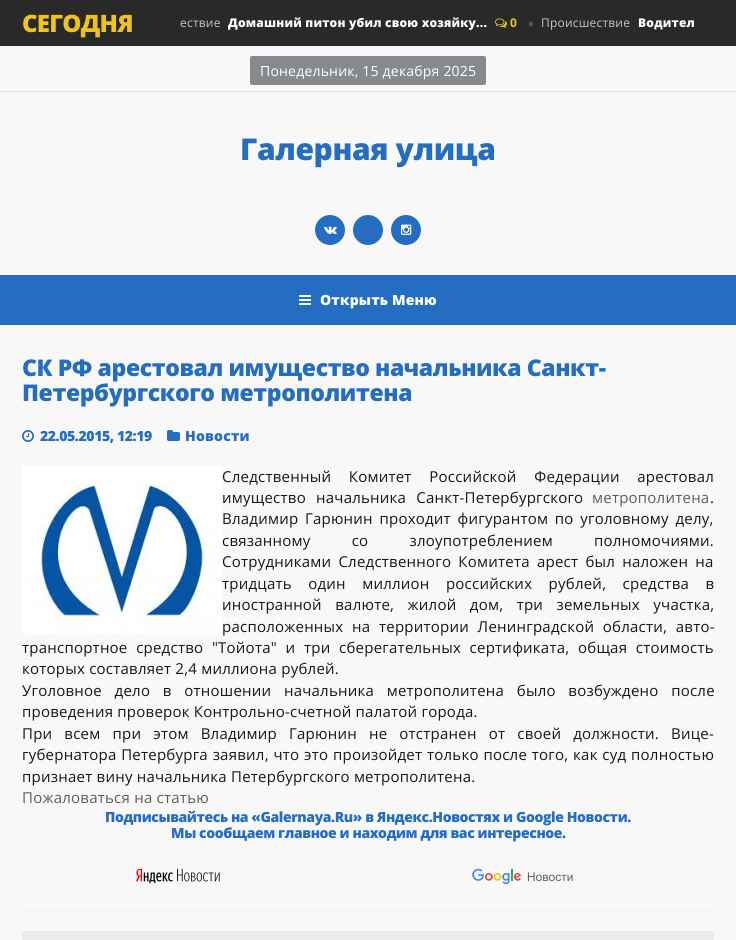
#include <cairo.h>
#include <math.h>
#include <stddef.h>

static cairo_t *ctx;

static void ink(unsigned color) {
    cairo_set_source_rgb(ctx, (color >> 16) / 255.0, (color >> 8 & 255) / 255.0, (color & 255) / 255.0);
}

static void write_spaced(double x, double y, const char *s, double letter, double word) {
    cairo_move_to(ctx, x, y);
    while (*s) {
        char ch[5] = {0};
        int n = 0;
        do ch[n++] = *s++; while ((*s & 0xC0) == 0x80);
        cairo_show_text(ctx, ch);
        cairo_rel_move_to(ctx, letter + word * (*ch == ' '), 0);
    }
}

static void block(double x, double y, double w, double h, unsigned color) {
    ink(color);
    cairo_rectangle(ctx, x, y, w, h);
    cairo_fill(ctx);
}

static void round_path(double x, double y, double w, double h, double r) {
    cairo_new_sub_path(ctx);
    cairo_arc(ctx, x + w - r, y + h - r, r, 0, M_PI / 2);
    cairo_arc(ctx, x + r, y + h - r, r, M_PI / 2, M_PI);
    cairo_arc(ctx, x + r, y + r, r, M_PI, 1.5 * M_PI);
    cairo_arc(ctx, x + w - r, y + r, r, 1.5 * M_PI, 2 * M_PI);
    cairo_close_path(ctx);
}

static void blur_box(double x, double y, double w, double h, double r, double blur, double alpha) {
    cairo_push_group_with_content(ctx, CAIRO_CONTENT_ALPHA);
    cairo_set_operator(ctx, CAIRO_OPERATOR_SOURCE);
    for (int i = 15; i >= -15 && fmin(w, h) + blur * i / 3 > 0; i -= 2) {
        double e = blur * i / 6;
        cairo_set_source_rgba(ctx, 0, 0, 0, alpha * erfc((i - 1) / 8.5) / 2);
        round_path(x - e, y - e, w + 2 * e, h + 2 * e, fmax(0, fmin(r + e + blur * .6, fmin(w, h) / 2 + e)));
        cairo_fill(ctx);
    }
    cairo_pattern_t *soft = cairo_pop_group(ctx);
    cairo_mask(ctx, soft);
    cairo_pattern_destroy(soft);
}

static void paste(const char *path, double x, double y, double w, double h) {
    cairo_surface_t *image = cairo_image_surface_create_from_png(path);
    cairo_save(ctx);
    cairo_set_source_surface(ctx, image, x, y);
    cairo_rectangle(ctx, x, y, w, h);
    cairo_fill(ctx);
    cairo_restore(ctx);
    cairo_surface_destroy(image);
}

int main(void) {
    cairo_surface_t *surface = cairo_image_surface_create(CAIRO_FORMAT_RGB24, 736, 940);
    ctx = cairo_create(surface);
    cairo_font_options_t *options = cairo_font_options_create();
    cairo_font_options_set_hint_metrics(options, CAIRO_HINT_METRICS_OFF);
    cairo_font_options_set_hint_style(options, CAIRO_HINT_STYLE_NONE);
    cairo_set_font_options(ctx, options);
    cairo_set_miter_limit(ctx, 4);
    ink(0xf8f8f8);
    cairo_paint(ctx);
    block(0, 0, 736, 46, 0x292929);
    cairo_select_font_face(ctx, "Open Sans ExtraBold", CAIRO_FONT_SLANT_NORMAL, CAIRO_FONT_WEIGHT_NORMAL);
    cairo_set_font_size(ctx, 24);
    ink(0xefc220);
    write_spaced(22, 32, "СЕГОДНЯ", -0.75, 0);
    cairo_save(ctx);
    cairo_rectangle(ctx, 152, 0, 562, 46);
    cairo_clip(ctx);
    ink(0x292929);
    blur_box(17, -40, 180, 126, 0, 30, 1);
    blur_box(679, -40, 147, 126, 0, 30, 1);
    cairo_restore(ctx);
    cairo_select_font_face(ctx, "Open Sans", CAIRO_FONT_SLANT_NORMAL, CAIRO_FONT_WEIGHT_NORMAL);
    cairo_set_font_size(ctx, 12);
    ink(0xc6c6c6);
    write_spaced(180, 27, "ествие", 0.2, 0);
    cairo_select_font_face(ctx, "Open Sans ExtraBold", CAIRO_FONT_SLANT_NORMAL, CAIRO_FONT_WEIGHT_NORMAL);
    ink(0xffffff);
    write_spaced(228, 27, "Домашний питон убил свою хозяйку...", 0.2, 0);
    paste("pic1.png", 495, 18, 12, 10);
    cairo_select_font_face(ctx, "Open Sans", CAIRO_FONT_SLANT_NORMAL, CAIRO_FONT_WEIGHT_BOLD);
    ink(0xefc220);
    write_spaced(510, 27, "0", 0.2, 0);
    block(529, 22, 4, 4, 0x545454);
    cairo_select_font_face(ctx, "Open Sans", CAIRO_FONT_SLANT_NORMAL, CAIRO_FONT_WEIGHT_NORMAL);
    ink(0xc6c6c6);
    write_spaced(541, 27, "Происшествие", 0.2, 0);
    cairo_select_font_face(ctx, "Open Sans ExtraBold", CAIRO_FONT_SLANT_NORMAL, CAIRO_FONT_WEIGHT_NORMAL);
    ink(0xffffff);
    write_spaced(638, 27, "Водител", 0.2, 0);
    block(0, 91, 736, 1, 0xe4e3e2);
    ink(0x86898e);
    round_path(250, 56, 236, 29, 2);
    cairo_fill(ctx);
    cairo_select_font_face(ctx, "Open Sans", CAIRO_FONT_SLANT_NORMAL, CAIRO_FONT_WEIGHT_NORMAL);
    cairo_set_font_size(ctx, 14);
    ink(0xffffff);
    write_spaced(260, 76, "Понедельник, 15 декабря 2025", 0.2, 0);
    cairo_select_font_face(ctx, "Open Sans ExtraBold", CAIRO_FONT_SLANT_NORMAL, CAIRO_FONT_WEIGHT_NORMAL);
    cairo_set_font_size(ctx, 30);
    ink(0x256dc1);
    write_spaced(240, 160, "Галерная улица", -0.4, 0);
    cairo_new_path(ctx);
    cairo_arc(ctx, 330, 230, 15, 0, 2 * M_PI);
    cairo_fill(ctx);
    paste("pic2.png", 324, 226, 13, 8);
    cairo_arc(ctx, 368, 230, 15, 0, 2 * M_PI);
    cairo_fill(ctx);
    cairo_arc(ctx, 406, 230, 15, 0, 2 * M_PI);
    cairo_fill(ctx);
    paste("pic3.png", 401, 224, 11, 11);
    block(0, 275, 736, 50, 0x256dc1);
    paste("pic4.png", 299, 295, 12, 10);
    cairo_set_font_size(ctx, 14);
    ink(0xffffff);
    write_spaced(320, 305, "Открыть Меню", 0.2, 0);
    cairo_set_font_size(ctx, 23);
    ink(0x256dc1);
    write_spaced(22, 376, "СК РФ арестовал имущество начальника Санкт-", -0.4, 0);
    write_spaced(22, 401, "Петербургского метрополитена", -0.4, 0);
    paste("pic5.png", 22, 430, 12, 12);
    cairo_set_font_size(ctx, 14);
    write_spaced(40, 441, "22.05.2015, 12:19", -0.4, 0);
    paste("pic6.png", 167, 430, 13, 11);
    write_spaced(185, 441, "Новости", 0.2, 0);
    paste("pic7.png", 22, 466, 200, 169);
    cairo_select_font_face(ctx, "Open Sans", CAIRO_FONT_SLANT_NORMAL, CAIRO_FONT_WEIGHT_NORMAL);
    cairo_set_font_size(ctx, 15);
    ink(0x171717);
    write_spaced(222, 482, "Следственный Комитет Российской Федерации арестовал", 0.23, 13.5);
    write_spaced(222, 503, "имущество начальника Санкт-Петербургского", 0.23, 6);
    ink(0x5e5e5e);
    write_spaced(592, 503, "метрополитена", 0.23, 0);
    ink(0x171717);
    write_spaced(710, 503, ".", 0.23, 0);
    write_spaced(222, 524, "Владимир Гарюнин проходит фигурантом по уголовному делу,", 0.23, 2.5);
    write_spaced(222, 546, "связанному со злоупотреблением полномочиями.", 0.23, 37);
    write_spaced(222, 567, "Сотрудниками Следственного Комитета арест был наложен на", 0.23, 3);
    write_spaced(222, 589, "тридцать один миллион российских рублей, средства в", 0.23, 12.25);
    write_spaced(222, 610, "иностранной валюте, жилой дом, три земельных участка,", 0.23, 9.25);
    write_spaced(222, 632, "расположенных на территории Ленинградской области, авто-", 0.23, 4.5);
    write_spaced(22, 653, "транспортное средство \"Тойота\" и три сберегательных сертификата, общая стоимость", 0.23, 4.5);
    write_spaced(22, 674, "которых составляет 2,4 миллиона рублей.", 0.23, 0);
    write_spaced(22, 696, "Уголовное дело в отношении начальника метрополитена было возбуждено после", 0.23, 8.5);
    write_spaced(22, 717, "проведения проверок Контрольно-счетной палатой города.", 0.23, 0);
    write_spaced(22, 739, "При всем при этом Владимир Гарюнин не отстранен от своей должности. Вице-", 0.23, 7.9);
    write_spaced(22, 760, "губернатора Петербурга заявил, что это произойдет только после того, как суд полностью", 0.23, 0.6);
    write_spaced(22, 782, "признает вину начальника Петербургского метрополитена.", 0.23, 0);
    ink(0x5e5e5e);
    write_spaced(22, 803, "Пожаловаться на статью", 0.23, 0);
    cairo_select_font_face(ctx, "Open Sans ExtraBold", CAIRO_FONT_SLANT_NORMAL, CAIRO_FONT_WEIGHT_NORMAL);
    cairo_set_font_size(ctx, 14);
    ink(0x256dc1);
    write_spaced(105, 822, "Подписывайтесь на «Galernaya.Ru» в Яндекс.Новостях и Google Новости.", -0.4, 0);
    write_spaced(171, 838, "Мы сообщаем главное и находим для вас интересное.", -0.4, 0);
    paste("pic8.png", 136, 868, 84, 16);
    paste("pic9.png", 472, 868, 101, 17);
    block(22, 910, 692, 1, 0xeeeeee);
    block(22, 931, 692, 9, 0xececec);
    cairo_surface_write_to_png(surface, "screenshot.png");
    cairo_font_options_destroy(options);
    cairo_destroy(ctx);
    cairo_surface_destroy(surface);
    return 0;
}
